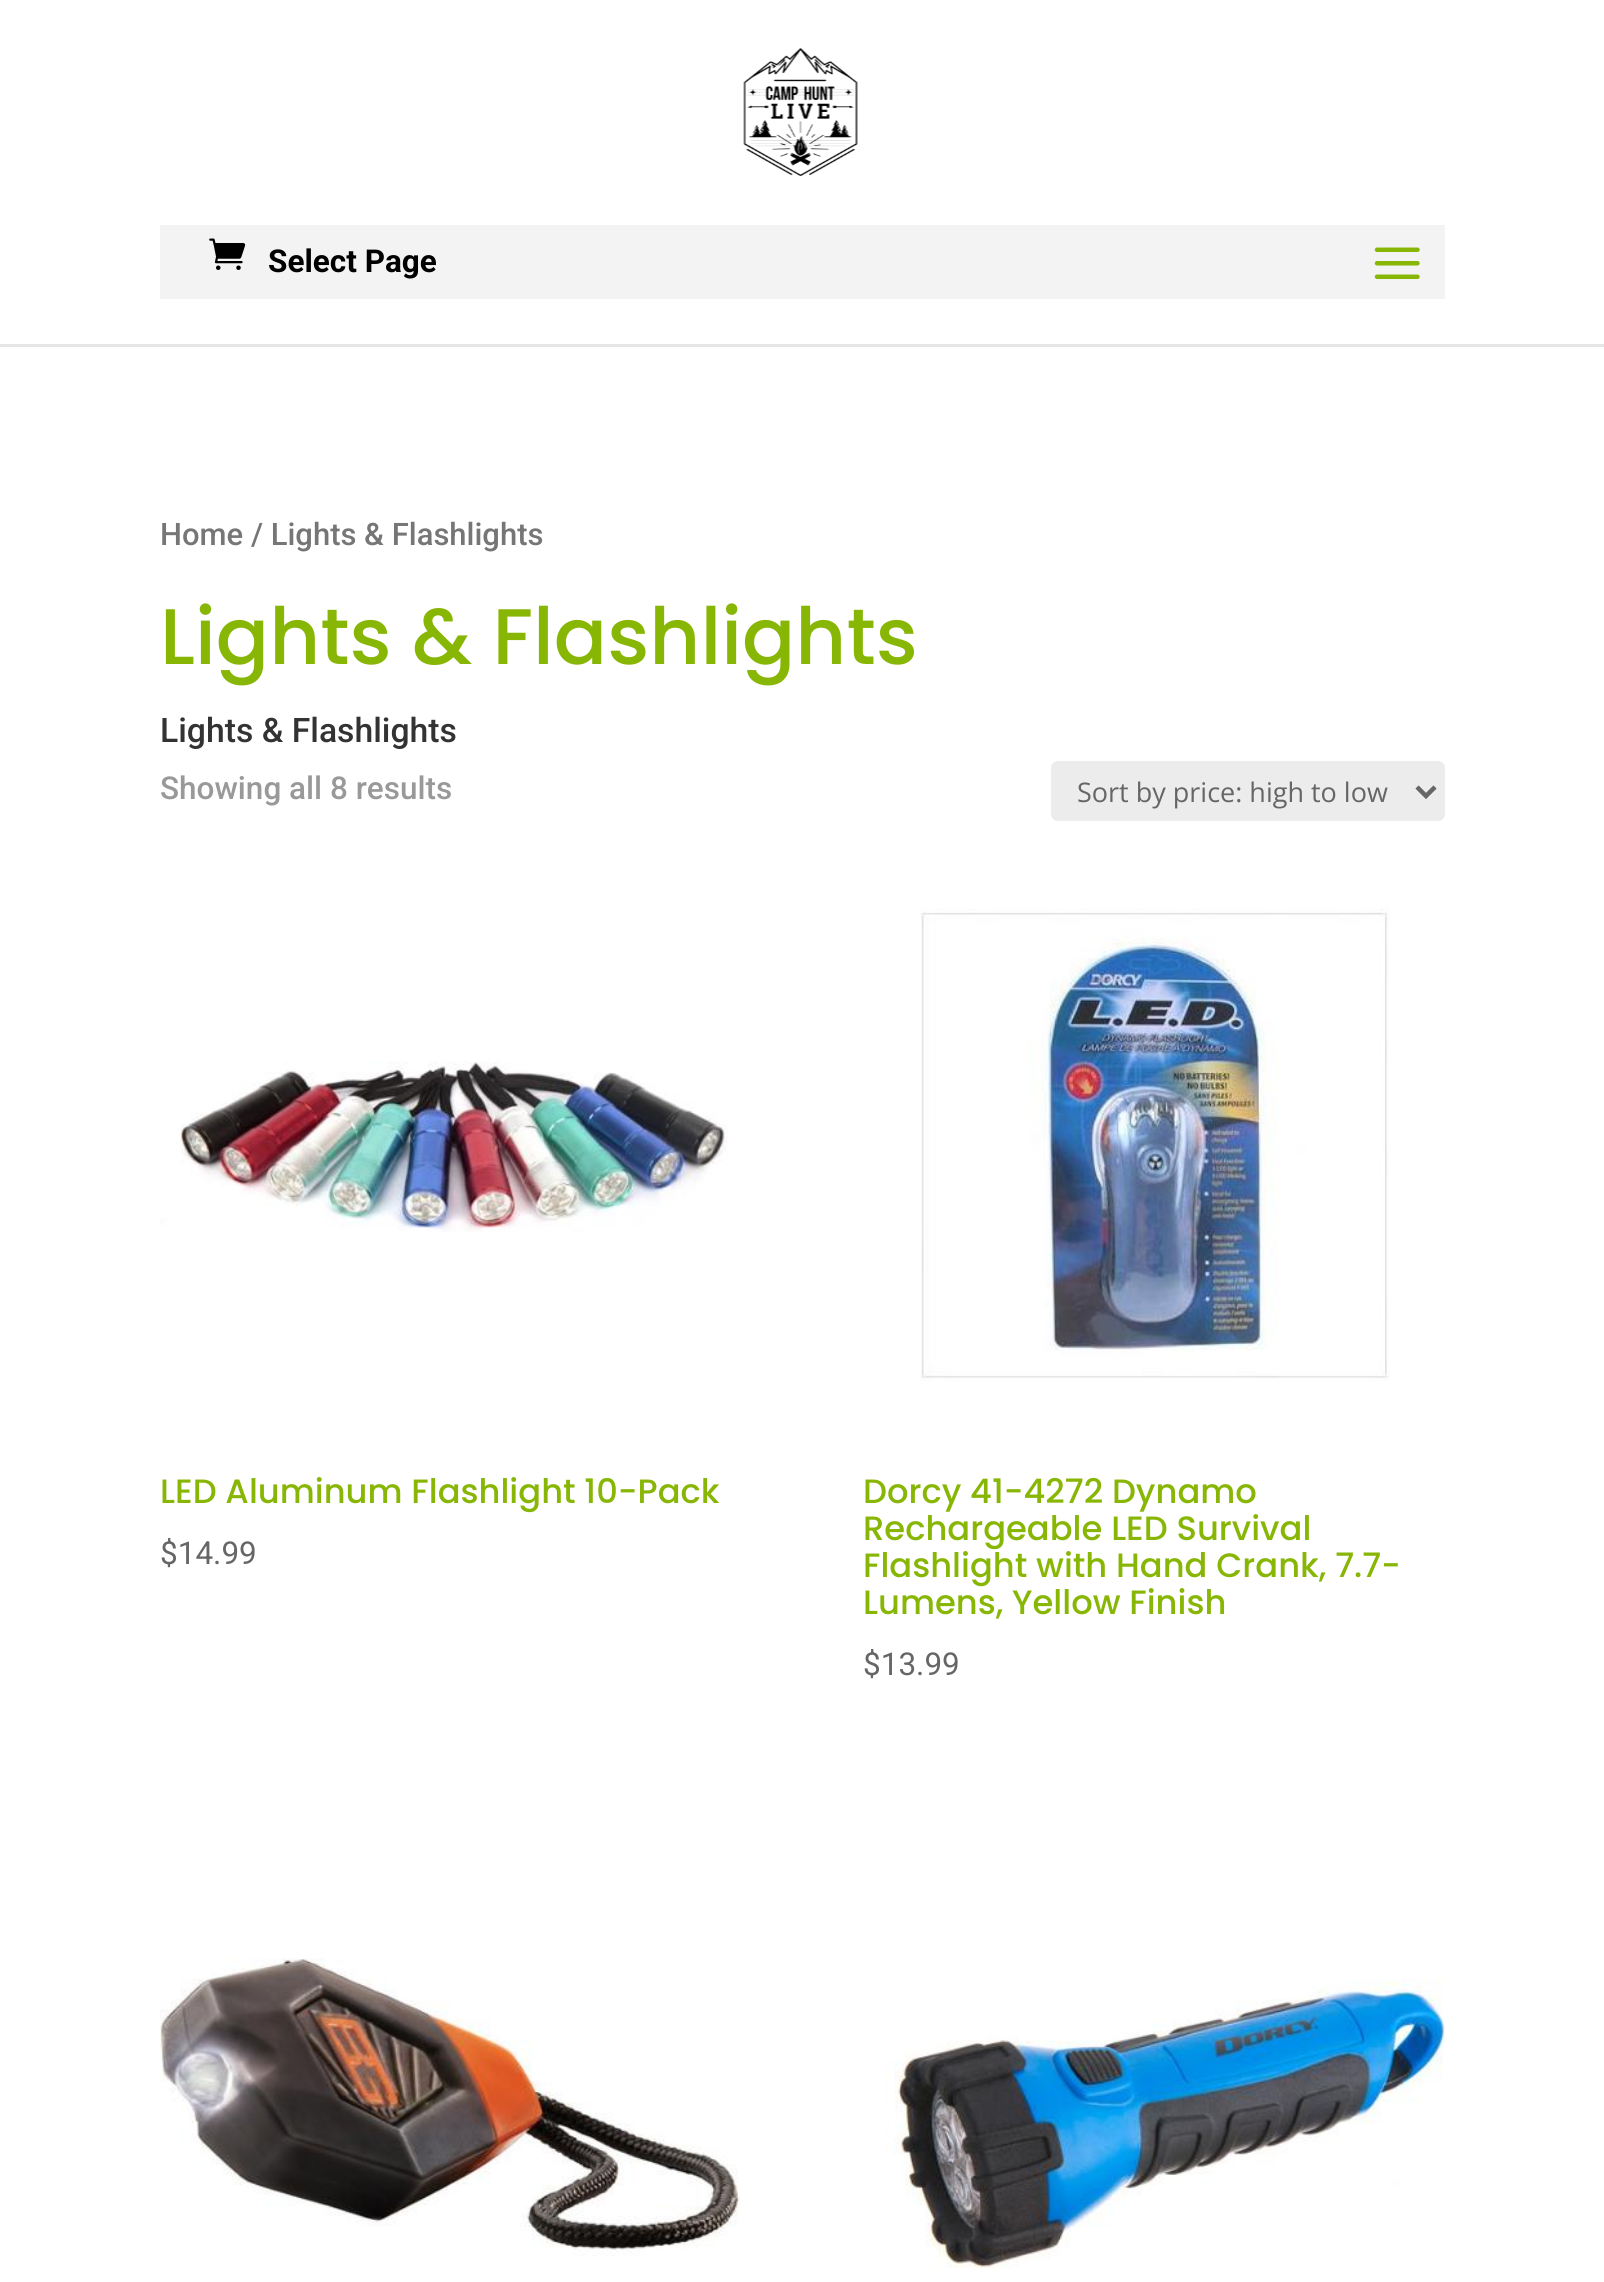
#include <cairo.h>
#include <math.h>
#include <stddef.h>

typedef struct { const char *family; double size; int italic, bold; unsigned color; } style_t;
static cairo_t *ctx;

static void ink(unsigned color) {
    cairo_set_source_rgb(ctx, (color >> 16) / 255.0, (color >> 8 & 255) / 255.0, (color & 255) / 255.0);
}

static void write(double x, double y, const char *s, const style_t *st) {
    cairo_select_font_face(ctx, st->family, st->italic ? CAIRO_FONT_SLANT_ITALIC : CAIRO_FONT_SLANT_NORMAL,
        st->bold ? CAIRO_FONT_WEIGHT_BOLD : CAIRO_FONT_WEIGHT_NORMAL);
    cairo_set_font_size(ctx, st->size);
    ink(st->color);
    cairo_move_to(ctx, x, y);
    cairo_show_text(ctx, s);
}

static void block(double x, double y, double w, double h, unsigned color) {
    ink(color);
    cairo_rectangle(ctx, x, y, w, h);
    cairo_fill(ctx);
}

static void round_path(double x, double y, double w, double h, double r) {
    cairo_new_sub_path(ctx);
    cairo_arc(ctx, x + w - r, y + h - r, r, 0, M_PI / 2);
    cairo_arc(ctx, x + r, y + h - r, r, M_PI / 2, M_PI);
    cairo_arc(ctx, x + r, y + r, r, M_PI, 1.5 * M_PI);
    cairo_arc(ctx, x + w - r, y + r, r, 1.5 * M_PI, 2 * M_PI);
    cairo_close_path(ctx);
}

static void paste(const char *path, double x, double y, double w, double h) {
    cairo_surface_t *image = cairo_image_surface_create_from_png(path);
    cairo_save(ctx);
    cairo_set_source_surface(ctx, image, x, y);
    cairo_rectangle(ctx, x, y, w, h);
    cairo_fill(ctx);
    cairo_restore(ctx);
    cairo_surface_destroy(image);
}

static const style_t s1 = {"Roboto", 31.5, 0, 1, 0x000000};
static const style_t s2 = {"Roboto Medium", 31, 0, 0, 0x767676};
static const style_t s3 = {"Poppins Medium", 78.75, 0, 0, 0x88b605};
static const style_t s4 = {"Roboto Medium", 33.75, 0, 0, 0x333333};
static const style_t s5 = {"Roboto Medium", 31.5, 0, 0, 0x999999};
static const style_t s6 = {"Open Sans", 27, 0, 0, 0x666666};
static const style_t s7 = {"Poppins Medium", 33.75, 0, 0, 0x88b605};
static const style_t s8 = {"Roboto", 31.5, 0, 0, 0x666666};

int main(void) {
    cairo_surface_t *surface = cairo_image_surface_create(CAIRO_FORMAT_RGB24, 1604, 2282);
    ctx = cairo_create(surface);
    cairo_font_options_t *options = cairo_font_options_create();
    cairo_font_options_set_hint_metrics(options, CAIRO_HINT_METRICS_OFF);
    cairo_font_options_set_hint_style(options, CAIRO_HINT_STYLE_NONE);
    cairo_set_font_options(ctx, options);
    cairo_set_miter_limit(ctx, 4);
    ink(0xffffff);
    cairo_paint(ctx);
    block(0, 344, 1604, 3, 0xe6e6e6);
    paste("pic1.png", 743, 48, 115, 128);
    paste("pic2.png", 209, 238, 37, 32);
    cairo_set_source_rgba(ctx, 0, 0, 0, 0.05);
    cairo_rectangle(ctx, 160, 225, 1285, 74);
    cairo_fill(ctx);
    write(268, 272, "Select Page", &s1);
    paste("pic3.png", 1374, 247, 46, 32);
    write(160, 545, "Home / Lights & Flashlights", &s2);
    write(160, 664, "Lights & Flashlights", &s3);
    write(160, 742, "Lights & Flashlights", &s4);
    write(160, 799, "Showing all 8 results", &s5);
    ink(0xececec);
    round_path(1051, 761, 394, 60, 7);
    cairo_fill(ctx);
    cairo_new_path(ctx);
    cairo_move_to(ctx, 1417, 787);
    cairo_line_to(ctx, 1426, 796);
    cairo_line_to(ctx, 1435, 787);
    ink(0x666666);
    cairo_set_line_width(ctx, 4.5);
    cairo_stroke(ctx);
    write(1077, 802, "Sort by price: high to low", &s6);
    paste("pic4.png", 160, 1061, 568, 171);
    write(160, 1503, "LED Aluminum Flashlight 10-Pack", &s7);
    write(160, 1564, "$14.99", &s8);
    paste("pic5.png", 920, 907, 470, 474);
    write(863, 1503, "Dorcy 41-4272 Dynamo", &s7);
    write(863, 1540, "Rechargeable LED Survival", &s7);
    write(863, 1577, "Flashlight with Hand Crank, 7.7-", &s7);
    write(863, 1614, "Lumens, Yellow Finish", &s7);
    write(863, 1675, "$13.99", &s8);
    paste("pic6.png", 159, 1958, 581, 298);
    paste("pic7.png", 885, 1979, 560, 290);
    cairo_surface_write_to_png(surface, "screenshot.png");
    cairo_font_options_destroy(options);
    cairo_destroy(ctx);
    cairo_surface_destroy(surface);
    return 0;
}
